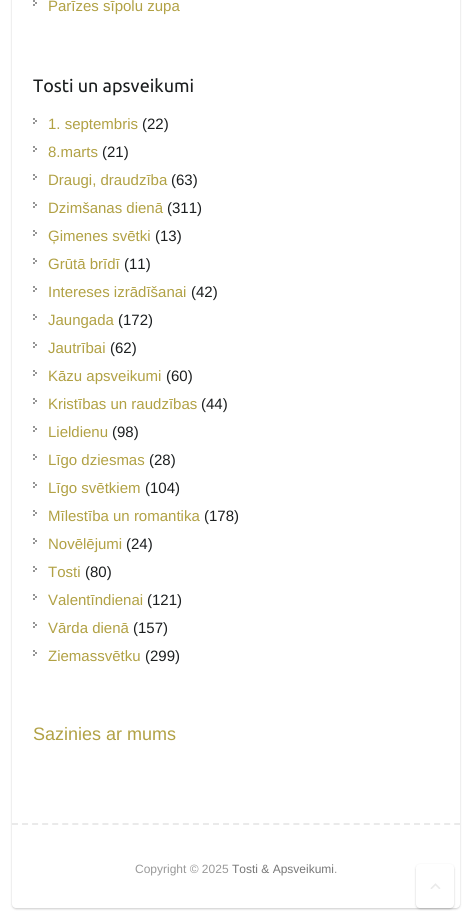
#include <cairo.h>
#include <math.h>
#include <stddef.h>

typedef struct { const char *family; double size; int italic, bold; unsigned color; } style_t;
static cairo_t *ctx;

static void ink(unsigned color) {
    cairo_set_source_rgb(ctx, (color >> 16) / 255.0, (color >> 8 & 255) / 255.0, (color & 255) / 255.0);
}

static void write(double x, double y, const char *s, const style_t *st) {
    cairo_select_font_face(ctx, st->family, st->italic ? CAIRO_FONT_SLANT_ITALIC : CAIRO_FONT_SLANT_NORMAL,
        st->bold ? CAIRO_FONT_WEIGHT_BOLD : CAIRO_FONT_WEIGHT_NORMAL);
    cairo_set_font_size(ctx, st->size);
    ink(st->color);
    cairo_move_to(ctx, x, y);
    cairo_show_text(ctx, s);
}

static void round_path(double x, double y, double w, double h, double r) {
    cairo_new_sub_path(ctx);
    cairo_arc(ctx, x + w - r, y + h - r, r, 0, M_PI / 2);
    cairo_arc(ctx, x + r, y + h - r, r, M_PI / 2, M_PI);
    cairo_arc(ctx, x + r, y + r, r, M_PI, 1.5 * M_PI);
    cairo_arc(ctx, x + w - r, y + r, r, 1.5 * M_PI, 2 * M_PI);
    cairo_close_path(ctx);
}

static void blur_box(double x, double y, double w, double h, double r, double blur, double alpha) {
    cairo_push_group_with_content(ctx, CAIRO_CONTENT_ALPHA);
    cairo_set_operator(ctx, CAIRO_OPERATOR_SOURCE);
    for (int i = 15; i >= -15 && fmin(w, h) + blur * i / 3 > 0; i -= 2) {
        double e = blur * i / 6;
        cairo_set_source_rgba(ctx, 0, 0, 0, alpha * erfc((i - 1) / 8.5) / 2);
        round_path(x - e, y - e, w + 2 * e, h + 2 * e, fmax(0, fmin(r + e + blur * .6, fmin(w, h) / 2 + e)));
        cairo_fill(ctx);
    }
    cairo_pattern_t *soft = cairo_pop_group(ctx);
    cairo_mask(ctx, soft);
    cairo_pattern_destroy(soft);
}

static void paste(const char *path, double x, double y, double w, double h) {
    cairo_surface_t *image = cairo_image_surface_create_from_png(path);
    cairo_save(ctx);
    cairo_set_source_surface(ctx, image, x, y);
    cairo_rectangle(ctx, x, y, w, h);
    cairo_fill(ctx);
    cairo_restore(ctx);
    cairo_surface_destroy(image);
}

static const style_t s1 = {"Liberation Sans", 15, 0, 0, 0xb1a144};
static const style_t s2 = {"Ubuntu", 18, 0, 0, 0x1b1e1f};
static const style_t s3 = {"Liberation Sans", 15, 0, 0, 0x1b1e1f};
static const style_t s4 = {"Liberation Sans", 18, 0, 0, 0xb1a144};
static const style_t s5 = {"Liberation Sans", 12, 0, 0, 0x999999};
static const style_t s6 = {"Liberation Sans", 12, 0, 0, 0x777777};

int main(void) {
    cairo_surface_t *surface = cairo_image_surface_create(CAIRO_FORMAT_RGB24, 472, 918);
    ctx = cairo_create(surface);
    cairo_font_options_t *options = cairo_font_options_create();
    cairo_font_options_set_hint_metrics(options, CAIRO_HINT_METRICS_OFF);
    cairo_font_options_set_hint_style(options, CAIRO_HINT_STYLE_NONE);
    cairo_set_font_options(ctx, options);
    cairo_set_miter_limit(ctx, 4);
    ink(0xffffff);
    cairo_paint(ctx);
    ink(0x000000);
    blur_box(12, -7, 448, 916, 4, 1, 0.2);
    ink(0xffffff);
    round_path(12, -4, 448, 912, 4);
    cairo_fill(ctx);
    paste("pic1.png", 33, 0, 4, 6);
    write(48, 11, "Parīzes sīpolu zupa", &s1);
    write(33, 92, "Tosti un apsveikumi", &s2);
    paste("pic1.png", 33, 118, 4, 6);
    write(48, 129, "1. septembris", &s1);
    write(142, 129, "(22)", &s3);
    paste("pic1.png", 33, 146, 4, 6);
    write(48, 157, "8.marts", &s1);
    write(102, 157, "(21)", &s3);
    paste("pic1.png", 33, 174, 4, 6);
    write(48, 185, "Draugi, draudzība", &s1);
    write(171, 185, "(63)", &s3);
    paste("pic1.png", 33, 202, 4, 6);
    write(48, 213, "Dzimšanas dienā", &s1);
    write(167, 213, "(311)", &s3);
    paste("pic1.png", 33, 230, 4, 6);
    write(48, 241, "Ģimenes svētki", &s1);
    write(155, 241, "(13)", &s3);
    paste("pic1.png", 33, 258, 4, 6);
    write(48, 269, "Grūtā brīdī", &s1);
    write(124, 269, "(11)", &s3);
    paste("pic1.png", 33, 286, 4, 6);
    write(48, 297, "Intereses izrādīšanai", &s1);
    write(191, 297, "(42)", &s3);
    paste("pic1.png", 33, 314, 4, 6);
    write(48, 325, "Jaungada", &s1);
    write(118, 325, "(172)", &s3);
    paste("pic1.png", 33, 342, 4, 6);
    write(48, 353, "Jautrībai", &s1);
    write(110, 353, "(62)", &s3);
    paste("pic1.png", 33, 370, 4, 6);
    write(48, 381, "Kāzu apsveikumi", &s1);
    write(166, 381, "(60)", &s3);
    paste("pic1.png", 33, 398, 4, 6);
    write(48, 409, "Kristības un raudzības", &s1);
    write(201, 409, "(44)", &s3);
    paste("pic1.png", 33, 426, 4, 6);
    write(48, 437, "Lieldienu", &s1);
    write(112, 437, "(98)", &s3);
    paste("pic1.png", 33, 454, 4, 6);
    write(48, 465, "Līgo dziesmas", &s1);
    write(149, 465, "(28)", &s3);
    paste("pic1.png", 33, 482, 4, 6);
    write(48, 493, "Līgo svētkiem", &s1);
    write(145, 493, "(104)", &s3);
    paste("pic1.png", 33, 510, 4, 6);
    write(48, 521, "Mīlestība un romantika", &s1);
    write(204, 521, "(178)", &s3);
    paste("pic1.png", 33, 538, 4, 6);
    write(48, 549, "Novēlējumi", &s1);
    write(126, 549, "(24)", &s3);
    paste("pic1.png", 33, 566, 4, 6);
    write(48, 577, "Tosti", &s1);
    write(85, 577, "(80)", &s3);
    paste("pic1.png", 33, 594, 4, 6);
    write(48, 605, "Valentīndienai", &s1);
    write(147, 605, "(121)", &s3);
    paste("pic1.png", 33, 622, 4, 6);
    write(48, 633, "Vārda dienā", &s1);
    write(133, 633, "(157)", &s3);
    paste("pic1.png", 33, 650, 4, 6);
    write(48, 661, "Ziemassvētku", &s1);
    write(145, 661, "(299)", &s3);
    write(33, 740, "Sazinies ar mums", &s4);
    cairo_new_path(ctx);
    cairo_move_to(ctx, 12, 824);
    cairo_line_to(ctx, 460, 824);
    ink(0xeaeaea);
    cairo_set_dash(ctx, (double[]){6, 4.05}, 2, 0);
    cairo_stroke(ctx);
    write(135, 873, "Copyright © 2025", &s5);
    write(232, 873, "Tosti & Apsveikumi", &s6);
    write(334, 873, ".", &s5);
    ink(0x000000);
    blur_box(416, 865, 38, 44, 4, 1, 0.2);
    ink(0xffffff);
    round_path(416, 864, 38, 44, 4);
    cairo_fill(ctx);
    paste("pic2.png", 430, 883, 11, 6);
    cairo_surface_write_to_png(surface, "screenshot.png");
    cairo_font_options_destroy(options);
    cairo_destroy(ctx);
    cairo_surface_destroy(surface);
    return 0;
}
